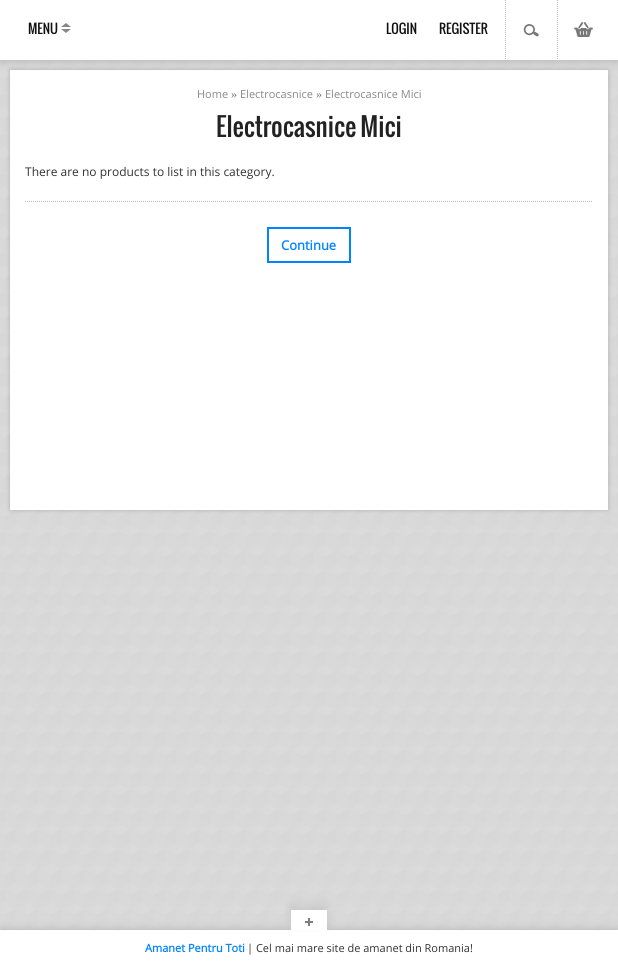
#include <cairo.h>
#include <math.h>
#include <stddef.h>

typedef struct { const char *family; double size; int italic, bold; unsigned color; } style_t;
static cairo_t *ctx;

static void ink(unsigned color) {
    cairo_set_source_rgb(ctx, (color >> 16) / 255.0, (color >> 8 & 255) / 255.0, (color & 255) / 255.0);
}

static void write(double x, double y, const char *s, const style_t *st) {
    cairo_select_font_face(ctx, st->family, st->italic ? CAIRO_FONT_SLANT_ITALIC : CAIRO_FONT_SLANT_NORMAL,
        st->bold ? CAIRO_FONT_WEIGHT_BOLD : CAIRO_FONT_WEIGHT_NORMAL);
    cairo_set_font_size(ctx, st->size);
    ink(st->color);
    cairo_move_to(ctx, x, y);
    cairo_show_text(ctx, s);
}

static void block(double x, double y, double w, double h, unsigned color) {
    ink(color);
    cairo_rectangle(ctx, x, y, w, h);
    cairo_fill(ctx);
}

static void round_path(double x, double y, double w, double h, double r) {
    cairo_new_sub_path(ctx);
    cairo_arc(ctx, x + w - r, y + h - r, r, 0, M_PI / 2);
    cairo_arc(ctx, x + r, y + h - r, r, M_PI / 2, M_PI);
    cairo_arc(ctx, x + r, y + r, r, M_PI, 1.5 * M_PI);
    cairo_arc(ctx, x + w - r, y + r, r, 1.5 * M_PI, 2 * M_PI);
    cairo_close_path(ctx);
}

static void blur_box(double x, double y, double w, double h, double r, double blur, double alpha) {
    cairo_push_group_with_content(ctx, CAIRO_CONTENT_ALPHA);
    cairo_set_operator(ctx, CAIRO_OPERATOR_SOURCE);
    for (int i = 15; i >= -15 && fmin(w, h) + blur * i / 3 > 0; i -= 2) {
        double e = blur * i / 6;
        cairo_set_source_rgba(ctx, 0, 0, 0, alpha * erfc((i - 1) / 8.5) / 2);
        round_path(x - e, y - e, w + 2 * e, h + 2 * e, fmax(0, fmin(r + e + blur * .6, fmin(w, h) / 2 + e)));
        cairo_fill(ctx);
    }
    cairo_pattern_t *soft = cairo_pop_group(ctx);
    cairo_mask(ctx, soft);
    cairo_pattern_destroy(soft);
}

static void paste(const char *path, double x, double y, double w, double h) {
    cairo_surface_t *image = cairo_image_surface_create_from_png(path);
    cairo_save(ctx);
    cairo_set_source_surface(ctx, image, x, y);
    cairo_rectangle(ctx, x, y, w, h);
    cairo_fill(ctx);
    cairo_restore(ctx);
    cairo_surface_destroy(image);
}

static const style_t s1 = {"Oswald", 13, 0, 0, 0x111111};
static const style_t s2 = {"Open Sans", 11, 0, 0, 0x888888};
static const style_t s3 = {"Liberation Serif", 12, 0, 0, 0x777777};
static const style_t s4 = {"Oswald", 25, 0, 0, 0x222222};
static const style_t s5 = {"Open Sans", 12, 0, 0, 0x333333};
static const style_t s6 = {"Open Sans", 13, 0, 1, 0x0084ff};
static const style_t s7 = {"Open Sans", 11, 0, 1, 0x0084ff};
static const style_t s8 = {"Open Sans", 11, 0, 0, 0x333333};

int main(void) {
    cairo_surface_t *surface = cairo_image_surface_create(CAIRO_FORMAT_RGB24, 618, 965);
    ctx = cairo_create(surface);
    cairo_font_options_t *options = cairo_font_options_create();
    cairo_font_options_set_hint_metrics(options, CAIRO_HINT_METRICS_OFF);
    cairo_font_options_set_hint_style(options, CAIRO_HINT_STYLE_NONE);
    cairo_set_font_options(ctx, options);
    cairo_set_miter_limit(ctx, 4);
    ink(0xffffff);
    cairo_paint(ctx);
    paste("pic3.png", 0, 60, 618, 870);
    ink(0x000000);
    blur_box(10, 70, 598, 440, 0, 2.5, 0.2);
    block(10, 70, 598, 440, 0xffffff);
    ink(0x000000);
    blur_box(0, 0, 618, 60, 0, 5, 0.2);
    block(0, 0, 618, 60, 0xffffff);
    write(28, 34, "MENU", &s1);
    ink(0x888888);
    cairo_new_path(ctx);
    cairo_move_to(ctx, 71, 27);
    cairo_line_to(ctx, 61, 27);
    cairo_line_to(ctx, 66, 23);
    cairo_close_path(ctx);
    cairo_move_to(ctx, 61, 29);
    cairo_line_to(ctx, 71, 29);
    cairo_line_to(ctx, 66, 33);
    cairo_close_path(ctx);
    cairo_fill(ctx);
    write(386, 34, "LOGIN", &s1);
    write(439, 34, "REGISTER", &s1);
    cairo_new_path(ctx);
    cairo_move_to(ctx, 505.5, 0);
    cairo_line_to(ctx, 505.5, 60);
    ink(0xbbbbbb);
    cairo_set_line_width(ctx, 1);
    cairo_set_dash(ctx, (double[]){1, 1}, 2, 0);
    cairo_stroke(ctx);
    paste("pic1.png", 523, 24, 16, 13);
    paste("pic2.png", 574, 22, 19, 15);
    cairo_new_path(ctx);
    cairo_move_to(ctx, 557.5, 0);
    cairo_line_to(ctx, 557.5, 60);
    cairo_stroke(ctx);
    write(197, 98, "Home", &s2);
    write(231, 98, "»", &s3);
    write(240, 98, "Electrocasnice", &s2);
    write(316, 98, "»", &s3);
    write(325, 98, "Electrocasnice Mici", &s2);
    write(216, 137, "Electrocasnice Mici", &s4);
    write(25, 176, "There are no products to list in this category.", &s5);
    cairo_new_path(ctx);
    cairo_move_to(ctx, 25, 201.5);
    cairo_line_to(ctx, 593, 201.5);
    ink(0xbbbbbb);
    cairo_stroke(ctx);
    cairo_rectangle(ctx, 268, 228, 82, 34);
    ink(0x0084ff);
    cairo_set_line_width(ctx, 2);
    cairo_set_dash(ctx, NULL, 0, 0);
    cairo_stroke(ctx);
    write(281, 250, "Continue", &s6);
    ink(0x000000);
    blur_box(0, 930, 618, 35, 0, 5, 0.2);
    block(0, 930, 618, 35, 0xffffff);
    ink(0x000000);
    blur_box(291, 905, 36, 20, 0, 5, 0.08);
    block(291, 910, 36, 20, 0xffffff);
    paste("pic4.png", 305, 918, 8, 8);
    write(145, 952, "Amanet Pentru Toti", &s7);
    write(247, 952, "| Cel mai mare site de amanet din Romania!", &s8);
    cairo_surface_write_to_png(surface, "screenshot.png");
    cairo_font_options_destroy(options);
    cairo_destroy(ctx);
    cairo_surface_destroy(surface);
    return 0;
}
